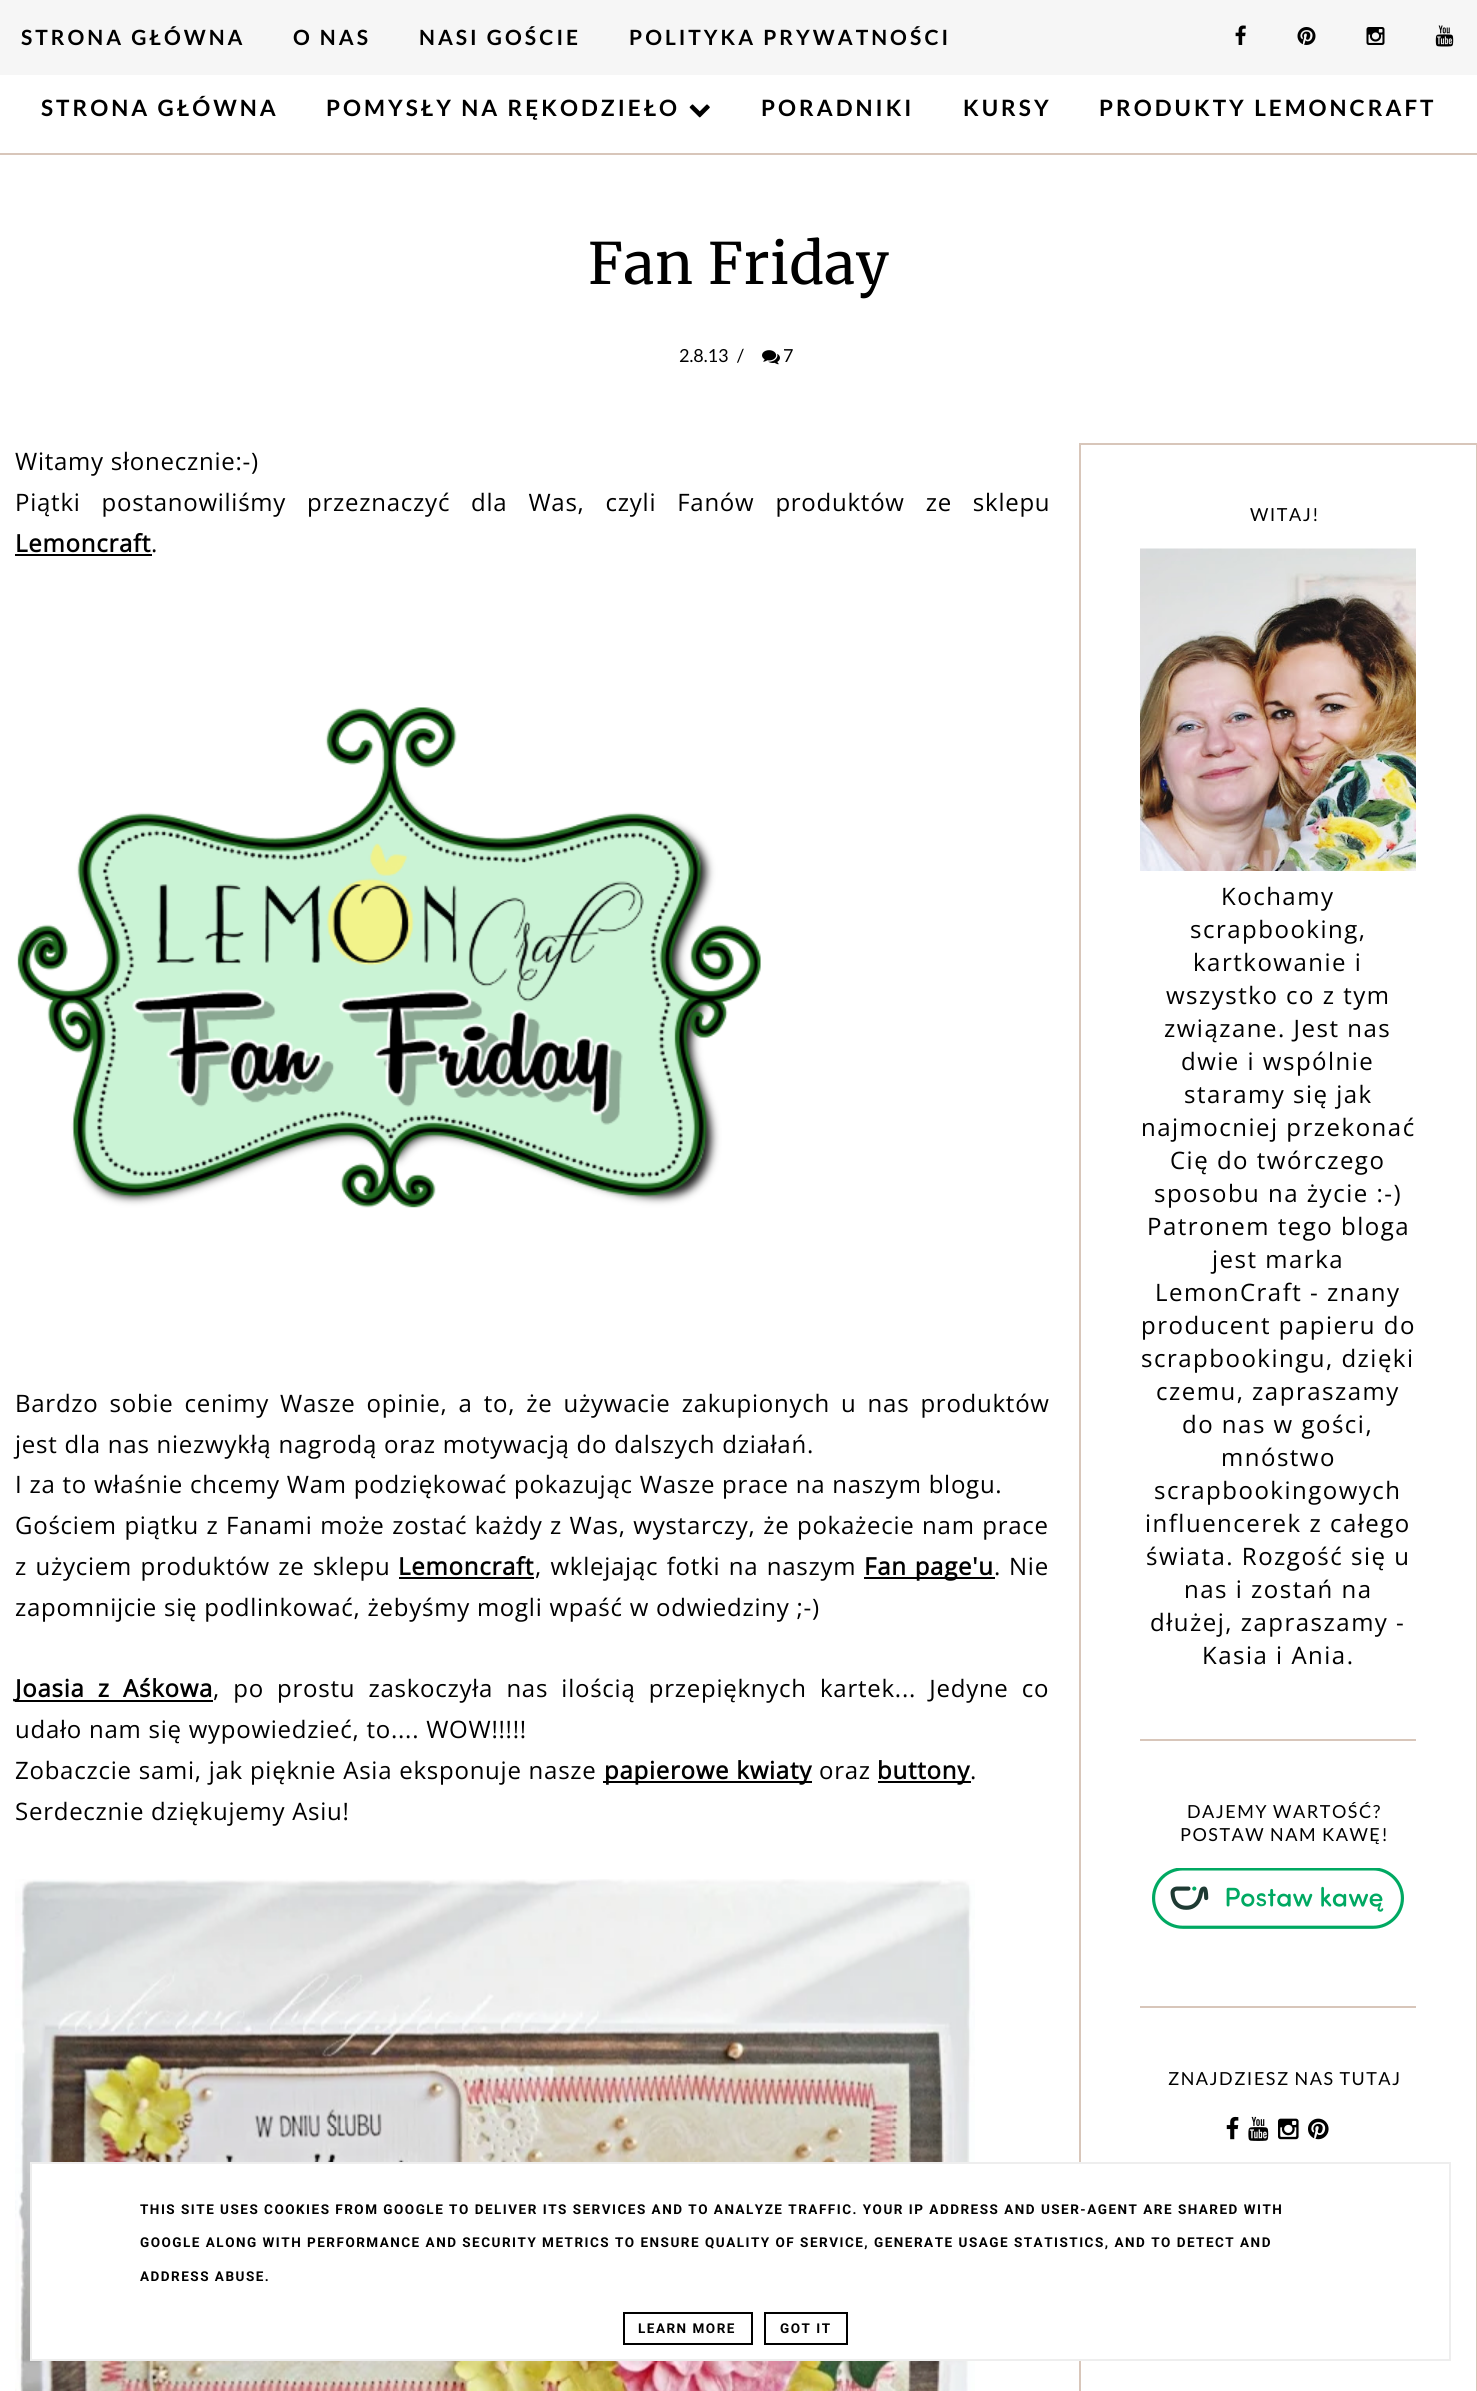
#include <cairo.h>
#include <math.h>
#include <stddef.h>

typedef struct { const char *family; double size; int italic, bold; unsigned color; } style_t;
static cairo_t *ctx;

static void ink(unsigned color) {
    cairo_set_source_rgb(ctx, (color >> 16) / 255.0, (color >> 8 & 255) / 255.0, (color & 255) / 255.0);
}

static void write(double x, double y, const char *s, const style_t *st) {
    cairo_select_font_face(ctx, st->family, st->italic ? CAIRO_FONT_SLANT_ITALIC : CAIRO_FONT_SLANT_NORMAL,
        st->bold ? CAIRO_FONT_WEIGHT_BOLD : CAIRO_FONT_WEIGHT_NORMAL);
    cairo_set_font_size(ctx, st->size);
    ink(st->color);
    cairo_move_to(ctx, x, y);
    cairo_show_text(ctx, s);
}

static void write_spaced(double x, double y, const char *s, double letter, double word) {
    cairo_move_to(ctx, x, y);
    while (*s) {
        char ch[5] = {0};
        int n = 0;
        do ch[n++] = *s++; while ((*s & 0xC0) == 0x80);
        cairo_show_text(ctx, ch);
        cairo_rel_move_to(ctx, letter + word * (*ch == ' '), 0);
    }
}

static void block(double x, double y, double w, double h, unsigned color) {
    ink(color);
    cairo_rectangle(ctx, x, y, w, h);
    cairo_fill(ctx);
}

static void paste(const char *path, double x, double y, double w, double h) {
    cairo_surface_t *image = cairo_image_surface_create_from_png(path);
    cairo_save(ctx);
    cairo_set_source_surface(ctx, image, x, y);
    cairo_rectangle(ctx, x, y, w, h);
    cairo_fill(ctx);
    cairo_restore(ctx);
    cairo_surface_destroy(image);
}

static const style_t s1 = {"Lato", 18, 0, 0, 0x000000};

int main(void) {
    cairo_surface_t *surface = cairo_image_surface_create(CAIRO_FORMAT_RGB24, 1477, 2391);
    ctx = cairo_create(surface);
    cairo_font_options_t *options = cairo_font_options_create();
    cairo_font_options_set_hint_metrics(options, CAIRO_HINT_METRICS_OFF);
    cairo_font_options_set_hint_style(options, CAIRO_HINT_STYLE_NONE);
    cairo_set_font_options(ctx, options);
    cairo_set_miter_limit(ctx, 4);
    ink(0xffffff);
    cairo_paint(ctx);
    block(0, 0, 1477, 75, 0xf6f6f6);
    cairo_select_font_face(ctx, "Lato", CAIRO_FONT_SLANT_NORMAL, CAIRO_FONT_WEIGHT_BOLD);
    cairo_set_font_size(ctx, 21);
    ink(0x000000);
    write_spaced(21, 45, "STRONA GŁÓWNA", 3, 0);
    write_spaced(293, 45, "O NAS", 3, 0);
    write_spaced(419, 45, "NASI GOŚCIE", 3, 0);
    write_spaced(629, 45, "POLITYKA PRYWATNOŚCI", 3, 0);
    paste("pic1.png", 1235, 25, 11, 20);
    paste("pic2.png", 1297, 27, 19, 18);
    paste("pic3.png", 1366, 27, 19, 18);
    paste("pic4.png", 1435, 25, 19, 22);
    block(0, 153, 1477, 2, 0xd8c6ba);
    cairo_set_font_size(ctx, 22.5);
    ink(0x000000);
    write_spaced(41, 116, "STRONA GŁÓWNA", 3, 0);
    write_spaced(326, 116, "POMYSŁY NA RĘKODZIEŁO", 3, 0);
    paste("pic5.png", 689, 104, 21, 14);
    write_spaced(761, 116, "PORADNIKI", 3, 0);
    write_spaced(963, 116, "KURSY", 3, 0);
    write_spaced(1099, 116, "PRODUKTY LEMONCRAFT", 3, 0);
    cairo_select_font_face(ctx, "Merriweather", CAIRO_FONT_SLANT_NORMAL, CAIRO_FONT_WEIGHT_NORMAL);
    cairo_set_font_size(ctx, 57);
    write_spaced(588, 284, "Fan Friday", 0.75, 0);
    write(679, 362, "2.8.13", &s1);
    write(737, 362, "/", &s1);
    paste("pic6.png", 762, 350, 18, 15);
    write(783, 362, "7", &s1);
    cairo_select_font_face(ctx, "Open Sans", CAIRO_FONT_SLANT_NORMAL, CAIRO_FONT_WEIGHT_NORMAL);
    cairo_set_font_size(ctx, 24);
    write_spaced(15, 470, "Witamy słonecznie:-)", 0.75, 0);
    write_spaced(15, 511, "Piątki postanowiliśmy przeznaczyć dla Was, czyli Fanów produktów ze sklepu", 0.75, 14);
    cairo_select_font_face(ctx, "Open Sans", CAIRO_FONT_SLANT_NORMAL, CAIRO_FONT_WEIGHT_BOLD);
    write_spaced(15, 552, "Lemoncraft", 0.75, 0);
    block(15, 554, 137, 2, 0x000000);
    cairo_select_font_face(ctx, "Open Sans", CAIRO_FONT_SLANT_NORMAL, CAIRO_FONT_WEIGHT_NORMAL);
    write_spaced(151, 552, ".", 0.75, 0);
    paste("pic7.png", 17, 707, 744, 501);
    write_spaced(15, 1412, "Bardzo sobie cenimy Wasze opinie, a to, że używacie zakupionych u nas produktów", 0.75, 4.1);
    write_spaced(15, 1453, "jest dla nas niezwykłą nagrodą oraz motywacją do dalszych działań.", 0.75, 0);
    write_spaced(15, 1493, "I za to właśnie chcemy Wam podziękować pokazując Wasze prace na naszym blogu.", 0.75, 0);
    write_spaced(15, 1534, "Gościem piątku z Fanami może zostać każdy z Was, wystarczy, że pokażecie nam prace", 0.75, 0.6);
    write_spaced(15, 1575, "z użyciem produktów ze sklepu", 0.75, 1.5);
    cairo_select_font_face(ctx, "Open Sans", CAIRO_FONT_SLANT_NORMAL, CAIRO_FONT_WEIGHT_BOLD);
    write_spaced(398, 1575, "Lemoncraft", 0.75, 0);
    block(399, 1577, 135, 2, 0x000000);
    cairo_select_font_face(ctx, "Open Sans", CAIRO_FONT_SLANT_NORMAL, CAIRO_FONT_WEIGHT_NORMAL);
    write_spaced(535, 1575, ", wklejając fotki na naszym", 0.75, 1.5);
    block(864, 1577, 131, 2, 0x000000);
    cairo_select_font_face(ctx, "Open Sans", CAIRO_FONT_SLANT_NORMAL, CAIRO_FONT_WEIGHT_BOLD);
    write_spaced(864, 1575, "Fan page'u", 0.75, 1);
    cairo_select_font_face(ctx, "Open Sans", CAIRO_FONT_SLANT_NORMAL, CAIRO_FONT_WEIGHT_NORMAL);
    write_spaced(994, 1575, ". Nie", 0.75, 1);
    write_spaced(15, 1616, "zapomnijcie się podlinkować, żebyśmy mogli wpaść w odwiedziny ;-)", 0.75, 0);
    block(15, 1700, 198, 2, 0x000000);
    cairo_select_font_face(ctx, "Open Sans", CAIRO_FONT_SLANT_NORMAL, CAIRO_FONT_WEIGHT_BOLD);
    write_spaced(15, 1697, "Joasia z Aśkowa", 0.75, 6.25);
    cairo_select_font_face(ctx, "Open Sans", CAIRO_FONT_SLANT_NORMAL, CAIRO_FONT_WEIGHT_NORMAL);
    write_spaced(213, 1697, ", po prostu zaskoczyła nas ilością przepięknych kartek... Jedyne co", 0.75, 6.25);
    write_spaced(15, 1738, "udało nam się wypowiedzieć, to.... WOW!!!!!", 0.75, 0);
    write_spaced(15, 1779, "Zobaczcie sami, jak pięknie Asia eksponuje nasze", 0.75, 0);
    block(603, 1781, 209, 2, 0x000000);
    cairo_select_font_face(ctx, "Open Sans", CAIRO_FONT_SLANT_NORMAL, CAIRO_FONT_WEIGHT_BOLD);
    write_spaced(604, 1779, "papierowe kwiaty", 0.75, 0);
    cairo_select_font_face(ctx, "Open Sans", CAIRO_FONT_SLANT_NORMAL, CAIRO_FONT_WEIGHT_NORMAL);
    write_spaced(819, 1779, "oraz", 0.75, 0);
    block(878, 1781, 93, 2, 0x000000);
    cairo_select_font_face(ctx, "Open Sans", CAIRO_FONT_SLANT_NORMAL, CAIRO_FONT_WEIGHT_BOLD);
    write_spaced(877, 1779, "buttony", 0.75, 0);
    cairo_select_font_face(ctx, "Open Sans", CAIRO_FONT_SLANT_NORMAL, CAIRO_FONT_WEIGHT_NORMAL);
    write_spaced(970, 1779, ".", 0.75, 0);
    write_spaced(15, 1820, "Serdecznie dziękujemy Asiu!", 0.75, 0);
    paste("pic8.png", 15, 1879, 960, 512);
    cairo_rectangle(ctx, 1080, 444, 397, 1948);
    ink(0xd8c6ba);
    cairo_stroke(ctx);
    block(1140, 1739, 276, 2, 0xd8c6ba);
    cairo_select_font_face(ctx, "Lato", CAIRO_FONT_SLANT_NORMAL, CAIRO_FONT_WEIGHT_NORMAL);
    cairo_set_font_size(ctx, 18);
    ink(0x000000);
    write_spaced(1250, 521, "WITAJ!", 1.5, 0);
    paste("pic9.png", 1140, 548, 276, 323);
    cairo_select_font_face(ctx, "Open Sans", CAIRO_FONT_SLANT_NORMAL, CAIRO_FONT_WEIGHT_NORMAL);
    cairo_set_font_size(ctx, 24);
    write_spaced(1221, 905, "Kochamy", 1.5, 0);
    write_spaced(1190, 938, "scrapbooking,", 1.5, 0);
    write_spaced(1193, 971, "kartkowanie i", 1.5, 0);
    write_spaced(1166, 1004, "wszystko co z tym", 1.5, 0);
    write_spaced(1164, 1037, "związane. Jest nas", 1.5, 0);
    write_spaced(1181, 1070, "dwie i wspólnie", 1.5, 0);
    write_spaced(1184, 1103, "staramy się jak", 1.5, 0);
    write_spaced(1141, 1136, "najmocniej przekonać", 1.5, 0);
    write_spaced(1170, 1169, "Cię do twórczego", 1.5, 0);
    write_spaced(1154, 1202, "sposobu na życie :-)", 1.5, 0);
    write_spaced(1147, 1235, "Patronem tego bloga", 1.5, 0);
    write_spaced(1212, 1268, "jest marka", 1.5, 0);
    write_spaced(1155, 1301, "LemonCraft - znany", 1.5, 0);
    write_spaced(1141, 1334, "producent papieru do", 1.5, 0);
    write_spaced(1141, 1367, "scrapbookingu, dzięki", 1.5, 0);
    write_spaced(1156, 1400, "czemu, zapraszamy", 1.5, 0);
    write_spaced(1182, 1433, "do nas w gości,", 1.5, 0);
    write_spaced(1221, 1466, "mnóstwo", 1.5, 0);
    write_spaced(1154, 1499, "scrapbookingowych", 1.5, 0);
    write_spaced(1145, 1532, "influencerek z całego", 1.5, 0);
    write_spaced(1146, 1565, "świata. Rozgość się u", 1.5, 0);
    write_spaced(1184, 1598, "nas i zostań na", 1.5, 0);
    write_spaced(1150, 1631, "dłużej, zapraszamy -", 1.5, 0);
    write_spaced(1202, 1664, "Kasia i Ania.", 1.5, 0);
    block(1140, 2006, 276, 2, 0xd8c6ba);
    cairo_select_font_face(ctx, "Lato", CAIRO_FONT_SLANT_NORMAL, CAIRO_FONT_WEIGHT_NORMAL);
    cairo_set_font_size(ctx, 18);
    ink(0x000000);
    write_spaced(1187, 1818, "DAJEMY WARTOŚĆ?", 1.5, 0);
    write_spaced(1180, 1841, "POSTAW NAM KAWĘ!", 1.5, 0);
    paste("pic10.png", 1152, 1868, 252, 61);
    write_spaced(1168, 2085, "ZNAJDZIESZ NAS TUTAJ", 1.5, 0);
    paste("pic11.png", 1226, 2116, 13, 24);
    paste("pic12.png", 1248, 2116, 21, 25);
    paste("pic13.png", 1278, 2118, 21, 22);
    paste("pic14.png", 1308, 2118, 21, 22);
    block(32, 2164, 1049, 195, 0xffffff);
    cairo_rectangle(ctx, 31, 2163, 1419, 197);
    ink(0xeeeeee);
    cairo_stroke(ctx);
    cairo_select_font_face(ctx, "Roboto", CAIRO_FONT_SLANT_NORMAL, CAIRO_FONT_WEIGHT_BOLD);
    cairo_set_font_size(ctx, 13.5);
    ink(0x000000);
    write_spaced(140, 2214, "THIS SITE USES COOKIES FROM GOOGLE TO DELIVER ITS SERVICES AND TO ANALYZE TRAFFIC. YOUR IP ADDRESS AND USER-AGENT ARE SHARED WITH", 1.5, 0);
    write_spaced(140, 2247, "GOOGLE ALONG WITH PERFORMANCE AND SECURITY METRICS TO ENSURE QUALITY OF SERVICE, GENERATE USAGE STATISTICS, AND TO DETECT AND", 1.5, 0);
    write_spaced(140, 2281, "ADDRESS ABUSE.", 1.5, 0);
    cairo_rectangle(ctx, 624, 2313, 128, 31);
    cairo_stroke(ctx);
    write_spaced(638, 2333, "LEARN MORE", 1.5, 0);
    cairo_rectangle(ctx, 765, 2313, 82, 31);
    cairo_stroke(ctx);
    write_spaced(780, 2333, "GOT IT", 1.5, 0);
    cairo_surface_write_to_png(surface, "screenshot.png");
    cairo_font_options_destroy(options);
    cairo_destroy(ctx);
    cairo_surface_destroy(surface);
    return 0;
}
